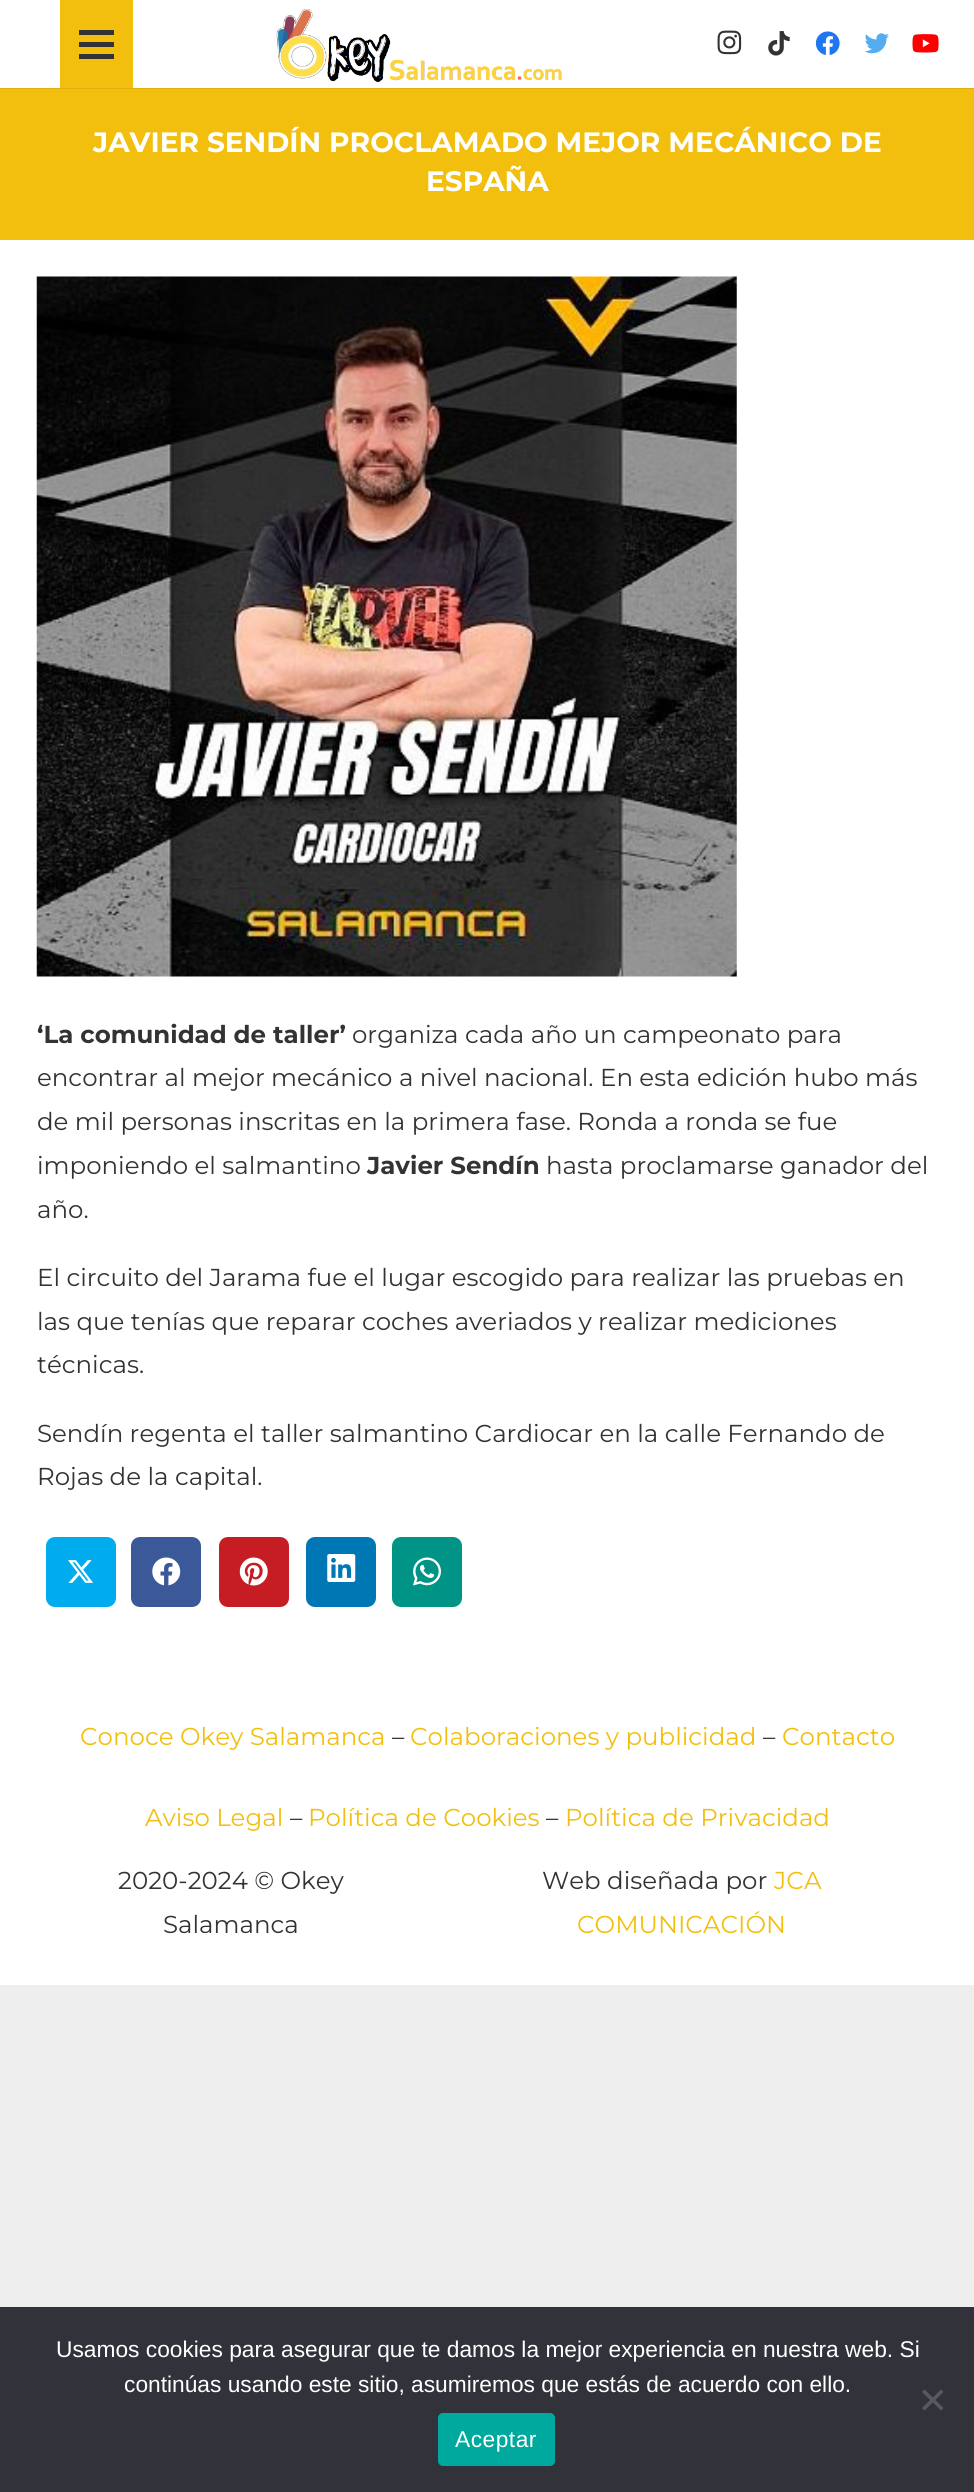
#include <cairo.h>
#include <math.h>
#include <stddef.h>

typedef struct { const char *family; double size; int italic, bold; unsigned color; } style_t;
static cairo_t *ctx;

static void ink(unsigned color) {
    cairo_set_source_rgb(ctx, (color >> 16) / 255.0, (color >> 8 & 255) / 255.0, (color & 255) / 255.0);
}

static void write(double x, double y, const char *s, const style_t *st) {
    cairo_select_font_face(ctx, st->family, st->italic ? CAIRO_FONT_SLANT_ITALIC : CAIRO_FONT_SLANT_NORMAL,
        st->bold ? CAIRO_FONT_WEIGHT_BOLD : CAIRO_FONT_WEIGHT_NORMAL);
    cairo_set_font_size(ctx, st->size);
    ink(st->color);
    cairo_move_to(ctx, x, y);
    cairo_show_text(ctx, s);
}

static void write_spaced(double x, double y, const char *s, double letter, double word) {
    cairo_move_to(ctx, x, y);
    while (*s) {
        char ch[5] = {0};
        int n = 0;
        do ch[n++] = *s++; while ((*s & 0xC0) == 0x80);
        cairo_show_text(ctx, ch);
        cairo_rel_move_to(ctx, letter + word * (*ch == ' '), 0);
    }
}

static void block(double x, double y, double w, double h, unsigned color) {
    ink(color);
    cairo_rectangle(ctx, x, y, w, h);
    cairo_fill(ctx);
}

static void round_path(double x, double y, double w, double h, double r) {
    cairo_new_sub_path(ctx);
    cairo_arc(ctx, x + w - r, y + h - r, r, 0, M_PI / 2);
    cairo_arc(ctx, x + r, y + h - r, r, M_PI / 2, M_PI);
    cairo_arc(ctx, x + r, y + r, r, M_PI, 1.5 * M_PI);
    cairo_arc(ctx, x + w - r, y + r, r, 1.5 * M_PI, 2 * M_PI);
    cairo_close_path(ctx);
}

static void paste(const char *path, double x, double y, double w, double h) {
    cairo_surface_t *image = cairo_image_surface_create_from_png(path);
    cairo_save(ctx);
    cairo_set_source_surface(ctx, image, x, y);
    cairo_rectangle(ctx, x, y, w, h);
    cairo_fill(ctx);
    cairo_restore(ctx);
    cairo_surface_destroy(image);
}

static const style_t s1 = {"Montserrat Thin", 28, 0, 0, 0xffffff};
static const style_t s2 = {"Montserrat Thin", 24.5, 0, 0, 0x333333};
static const style_t s3 = {"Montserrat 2 Thin", 24.5, 0, 0, 0x333333};
static const style_t s4 = {"Montserrat 2 Thin", 24.5, 0, 0, 0xf2bf0e};
static const style_t s5 = {"Liberation Sans", 22.75, 0, 0, 0xffffff};

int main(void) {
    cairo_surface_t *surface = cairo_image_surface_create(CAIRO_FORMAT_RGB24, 974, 2492);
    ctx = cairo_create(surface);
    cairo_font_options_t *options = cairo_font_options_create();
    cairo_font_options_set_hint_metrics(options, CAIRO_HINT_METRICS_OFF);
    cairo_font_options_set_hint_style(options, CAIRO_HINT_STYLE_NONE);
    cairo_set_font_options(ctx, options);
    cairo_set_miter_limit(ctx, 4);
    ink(0xeeeeee);
    cairo_paint(ctx);
    block(0, 240, 974, 1745, 0xffffff);
    ink(0xdfb00d);
    cairo_new_path(ctx);
    cairo_move_to(ctx, 0, 88);
    cairo_line_to(ctx, 0, 89);
    cairo_line_to(ctx, 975, 89);
    cairo_line_to(ctx, 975, 2);
    cairo_line_to(ctx, 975, 88);
    cairo_close_path(ctx);
    cairo_fill(ctx);
    block(0, 0, 974, 88, 0xffffff);
    block(60, 0, 73, 88, 0xf2bf0e);
    block(79, 42, 35, 5, 0x333333);
    block(79, 30, 35, 5, 0x333333);
    block(79, 54, 35, 5, 0x333333);
    paste("pic1.png", 276, 9, 286, 74);
    paste("pic2.png", 717, 30, 25, 25);
    paste("pic3.png", 768, 31, 22, 25);
    paste("pic4.png", 815, 31, 25, 24);
    paste("pic5.png", 864, 33, 25, 21);
    paste("pic6.png", 912, 34, 27, 19);
    block(0, 89, 974, 151, 0xf2bf0e);
    write(93, 152, "JAVIER SENDÍN PROCLAMADO MEJOR MECÁNICO DE", &s1);
    write(426, 191, "ESPAÑA", &s1);
    paste("pic7.png", 36, 276, 701, 701);
    write(37, 1043, "‘La comunidad de taller’", &s2);
    write(352, 1043, "organiza cada año un campeonato para", &s3);
    write(37, 1086, "encontrar al mejor mecánico a nivel nacional. En esta edición hubo más", &s3);
    write(37, 1130, "de mil personas inscritas en la primera fase. Ronda a ronda se fue", &s3);
    write(37, 1174, "imponiendo el salmantino", &s3);
    write(367, 1174, "Javier Sendín", &s2);
    write(546, 1174, "hasta proclamarse ganador del", &s3);
    write(37, 1218, "año.", &s3);
    write(37, 1286, "El circuito del Jarama fue el lugar escogido para realizar las pruebas en", &s3);
    write(37, 1330, "las que tenías que reparar coches averiados y realizar mediciones", &s3);
    write(37, 1373, "técnicas.", &s3);
    write(37, 1442, "Sendín regenta el taller salmantino Cardiocar en la calle Fernando de", &s3);
    write(37, 1485, "Rojas de la capital.", &s3);
    ink(0x00aced);
    round_path(46, 1537, 70, 70, 9);
    cairo_fill(ctx);
    paste("pic8.png", 68, 1560, 25, 23);
    ink(0x3b5998);
    round_path(131, 1537, 70, 70, 9);
    cairo_fill(ctx);
    paste("pic9.png", 152, 1557, 29, 29);
    ink(0xc61d25);
    round_path(219, 1537, 70, 70, 9);
    cairo_fill(ctx);
    paste("pic10.png", 239, 1557, 29, 29);
    ink(0x0077b5);
    round_path(306, 1537, 70, 70, 9);
    cairo_fill(ctx);
    paste("pic11.png", 327, 1554, 29, 28);
    ink(0x009487);
    round_path(392, 1537, 70, 70, 9);
    cairo_fill(ctx);
    paste("pic12.png", 413, 1557, 28, 29);
    write(80, 1745, "Conoce Okey Salamanca", &s4);
    write(392, 1745, "–", &s3);
    write(410, 1745, "Colaboraciones y publicidad", &s4);
    write(763, 1745, "–", &s3);
    write(782, 1745, "Contacto", &s4);
    write(145, 1826, "Aviso Legal", &s4);
    write(290, 1826, "–", &s3);
    write(308, 1826, "Política de Cookies", &s4);
    write(546, 1826, "–", &s3);
    write(565, 1826, "Política de Privacidad", &s4);
    write(118, 1889, "2020-2024 © Okey", &s3);
    write(163, 1933, "Salamanca", &s3);
    write(542, 1889, "Web diseñada por", &s3);
    write(774, 1889, "JCA", &s4);
    write(577, 1933, "COMUNICACIÓN", &s4);
    block(0, 2307, 974, 185, 0x32323a);
    write(56, 2357, "Usamos cookies para asegurar que te damos la mejor experiencia en nuestra web. Si", &s5);
    write(124, 2392, "continúas usando este sitio, asumiremos que estás de acuerdo con ello.", &s5);
    ink(0x59595d);
    cairo_new_path(ctx);
    cairo_move_to(ctx, 941, 2389.5);
    cairo_line_to(ctx, 943.5, 2392);
    cairo_line_to(ctx, 924.5, 2410.5);
    cairo_line_to(ctx, 922, 2408);
    cairo_close_path(ctx);
    cairo_fill(ctx);
    cairo_new_path(ctx);
    cairo_move_to(ctx, 922, 2392);
    cairo_line_to(ctx, 924.5, 2389.5);
    cairo_line_to(ctx, 943.5, 2408);
    cairo_line_to(ctx, 941, 2410.5);
    cairo_close_path(ctx);
    cairo_fill(ctx);
    ink(0x00a99d);
    round_path(438, 2413, 117, 53, 5);
    cairo_fill(ctx);
    ink(0xffffff);
    write_spaced(455, 2447, "Aceptar", 0.5, 0);
    cairo_surface_write_to_png(surface, "screenshot.png");
    cairo_font_options_destroy(options);
    cairo_destroy(ctx);
    cairo_surface_destroy(surface);
    return 0;
}
